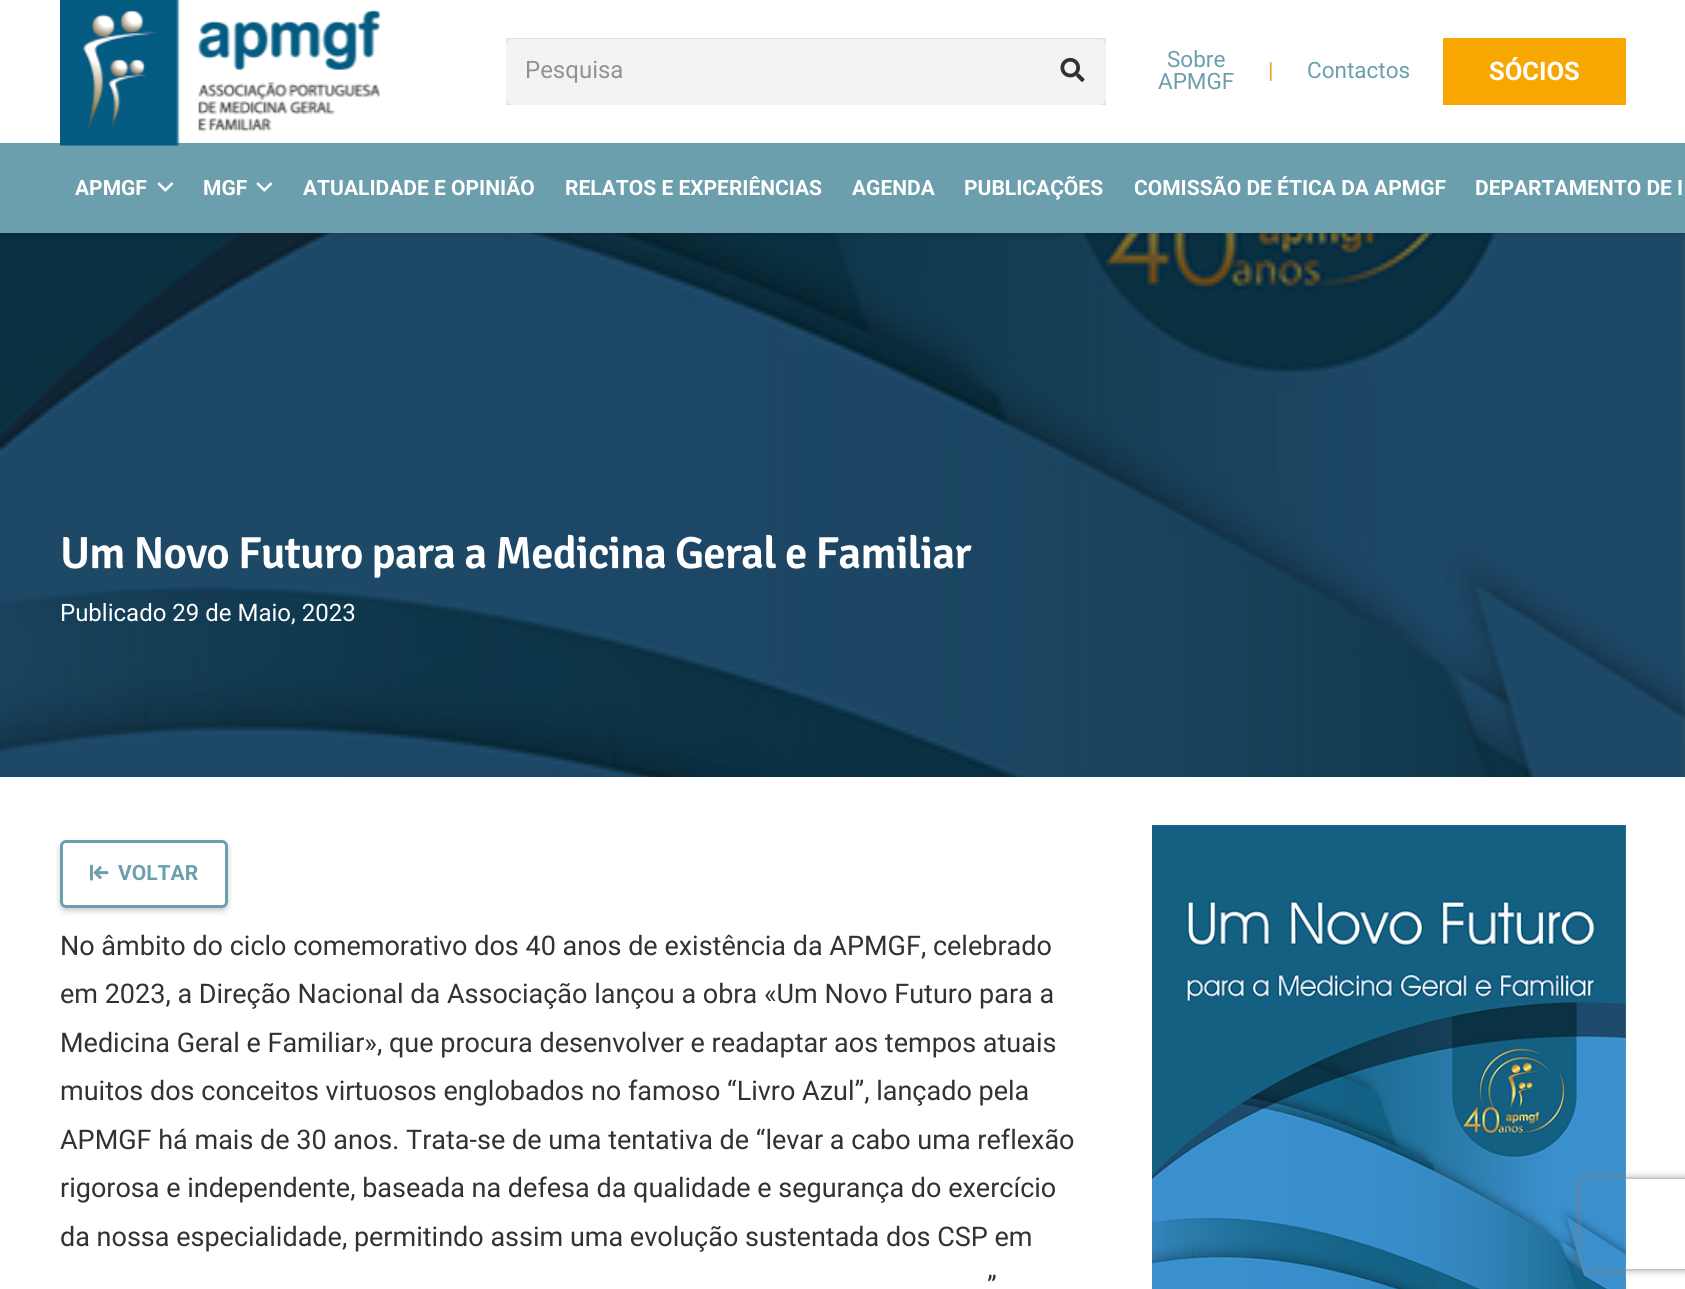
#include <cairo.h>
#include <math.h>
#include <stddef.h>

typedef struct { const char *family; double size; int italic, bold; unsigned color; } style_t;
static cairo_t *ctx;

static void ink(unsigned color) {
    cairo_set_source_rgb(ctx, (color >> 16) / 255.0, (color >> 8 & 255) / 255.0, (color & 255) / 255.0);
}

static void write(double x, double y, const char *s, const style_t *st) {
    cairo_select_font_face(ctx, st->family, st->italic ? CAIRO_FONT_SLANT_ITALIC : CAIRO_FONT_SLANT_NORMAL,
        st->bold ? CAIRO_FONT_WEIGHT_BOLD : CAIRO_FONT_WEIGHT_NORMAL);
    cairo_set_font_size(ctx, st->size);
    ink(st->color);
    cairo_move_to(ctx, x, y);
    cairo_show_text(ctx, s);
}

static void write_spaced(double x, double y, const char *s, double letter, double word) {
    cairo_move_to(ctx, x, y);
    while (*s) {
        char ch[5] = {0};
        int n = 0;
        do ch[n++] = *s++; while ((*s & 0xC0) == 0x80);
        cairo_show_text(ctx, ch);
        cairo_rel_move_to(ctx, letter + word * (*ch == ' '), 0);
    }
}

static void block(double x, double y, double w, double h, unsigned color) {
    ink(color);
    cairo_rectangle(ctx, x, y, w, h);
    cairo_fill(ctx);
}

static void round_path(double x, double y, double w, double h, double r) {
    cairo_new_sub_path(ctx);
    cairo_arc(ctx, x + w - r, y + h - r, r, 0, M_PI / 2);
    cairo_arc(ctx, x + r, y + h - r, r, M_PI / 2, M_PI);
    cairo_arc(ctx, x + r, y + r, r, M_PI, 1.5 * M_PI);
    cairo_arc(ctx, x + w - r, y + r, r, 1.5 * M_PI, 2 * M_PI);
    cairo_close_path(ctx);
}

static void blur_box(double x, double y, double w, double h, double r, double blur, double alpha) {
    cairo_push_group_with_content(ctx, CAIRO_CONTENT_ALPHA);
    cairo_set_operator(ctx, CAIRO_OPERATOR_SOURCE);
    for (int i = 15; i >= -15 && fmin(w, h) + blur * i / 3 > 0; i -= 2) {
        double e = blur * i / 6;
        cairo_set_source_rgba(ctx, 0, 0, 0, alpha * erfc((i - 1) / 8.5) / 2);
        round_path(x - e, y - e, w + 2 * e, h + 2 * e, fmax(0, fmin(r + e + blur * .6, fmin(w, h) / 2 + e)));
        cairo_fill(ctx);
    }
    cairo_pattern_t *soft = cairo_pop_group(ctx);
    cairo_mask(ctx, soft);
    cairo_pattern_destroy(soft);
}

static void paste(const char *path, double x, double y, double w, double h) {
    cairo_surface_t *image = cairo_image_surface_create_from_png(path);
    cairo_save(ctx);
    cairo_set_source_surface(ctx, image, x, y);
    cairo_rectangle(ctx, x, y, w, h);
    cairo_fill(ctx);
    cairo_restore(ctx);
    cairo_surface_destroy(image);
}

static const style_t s1 = {"Roboto", 24, 0, 0, 0x929294};
static const style_t s2 = {"Roboto", 22.5, 0, 0, 0x6b9fad};
static const style_t s3 = {"Roboto", 22.5, 0, 0, 0xe4a627};
static const style_t s4 = {"Roboto", 25.5, 0, 1, 0xffffff};
static const style_t s5 = {"Roboto", 21, 0, 1, 0xffffff};
static const style_t s6 = {"Roboto", 24, 0, 0, 0xffffff};
static const style_t s7 = {"Roboto", 21, 0, 1, 0x6b9fad};
static const style_t s8 = {"Roboto", 27, 0, 0, 0x313233};

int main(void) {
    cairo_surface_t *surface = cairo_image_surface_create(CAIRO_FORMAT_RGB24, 1685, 1289);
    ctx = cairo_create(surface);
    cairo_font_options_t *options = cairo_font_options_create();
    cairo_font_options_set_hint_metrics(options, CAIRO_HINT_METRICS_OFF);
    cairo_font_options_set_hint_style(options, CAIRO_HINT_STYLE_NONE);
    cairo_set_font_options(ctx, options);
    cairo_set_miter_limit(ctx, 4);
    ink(0xffffff);
    cairo_paint(ctx);
    paste("pic4.png", 0, 233, 1685, 544);
    ink(0x000000);
    blur_box(2, 147, 1683, 87, 0, 1, 0.05);
    blur_box(2, 149, 1683, 87, 0, 4, 0.1);
    block(0, 143, 1685, 90, 0x6b9fad);
    paste("pic1.png", 60, 0, 320, 146);
    block(506, 38, 600, 67, 0xdde5eb);
    ink(0xf3f2f5);
    round_path(506, 38, 600, 67, 8);
    cairo_fill(ctx);
    cairo_set_source_rgba(ctx, 0, 0, 0, 0.08);
    cairo_new_path(ctx);
    cairo_move_to(ctx, 513, 39);
    cairo_line_to(ctx, 1098, 39);
    cairo_curve_to(ctx, 1102, 39, 1106, 42, 1106, 46);
    cairo_curve_to(ctx, 1106, 42, 1102, 38, 1098, 38);
    cairo_line_to(ctx, 514, 38);
    cairo_curve_to(ctx, 510, 38, 506, 42, 506, 46);
    cairo_curve_to(ctx, 506, 42, 509, 39, 513, 39);
    cairo_close_path(ctx);
    cairo_fill(ctx);
    write(525, 78, "Pesquisa", &s1);
    paste("pic2.png", 1060, 57, 25, 25);
    write(1167, 67, "Sobre", &s2);
    write(1158, 89, "APMGF", &s2);
    write(1268, 78, "|", &s3);
    write(1307, 78, "Contactos", &s2);
    block(1443, 38, 183, 67, 0xf8a700);
    write(1489, 80, "SÓCIOS", &s4);
    write(75, 195, "APMGF", &s5);
    paste("pic3.png", 157, 182, 17, 10);
    write(203, 195, "MGF", &s5);
    paste("pic3.png", 256, 182, 17, 10);
    write(303, 195, "ATUALIDADE E OPINIÃO", &s5);
    write(565, 195, "RELATOS E EXPERIÊNCIAS", &s5);
    write(852, 195, "AGENDA", &s5);
    write(964, 195, "PUBLICAÇÕES", &s5);
    write(1134, 195, "COMISSÃO DE ÉTICA DA APMGF", &s5);
    write(1475, 195, "DEPARTAMENTO DE I", &s5);
    cairo_select_font_face(ctx, "Signika SemiBold", CAIRO_FONT_SLANT_NORMAL, CAIRO_FONT_WEIGHT_NORMAL);
    cairo_set_font_size(ctx, 45);
    write_spaced(60, 568, "Um Novo Futuro para a Medicina Geral e Familiar", -0.9, 0);
    write(60, 621, "Publicado 29 de Maio, 2023", &s6);
    ink(0x000000);
    blur_box(60, 843, 168, 68, 6, 3, 0.2);
    ink(0xffffff);
    round_path(60, 840, 168, 68, 6);
    cairo_fill(ctx);
    paste("pic5.png", 90, 864, 19, 17);
    round_path(61.5, 841.5, 165, 65, 4.5);
    ink(0x6b9fad);
    cairo_set_line_width(ctx, 3);
    cairo_stroke(ctx);
    write(118, 880, "VOLTAR", &s7);
    write(60, 955, "No âmbito do ciclo comemorativo dos 40 anos de existência da APMGF, celebrado", &s8);
    write(60, 1003, "em 2023, a Direção Nacional da Associação lançou a obra «Um Novo Futuro para a", &s8);
    write(60, 1052, "Medicina Geral e Familiar», que procura desenvolver e readaptar aos tempos atuais", &s8);
    write(60, 1100, "muitos dos conceitos virtuosos englobados no famoso “Livro Azul”, lançado pela", &s8);
    write(60, 1149, "APMGF há mais de 30 anos. Trata-se de uma tentativa de “levar a cabo uma reflexão", &s8);
    write(60, 1197, "rigorosa e independente, baseada na defesa da qualidade e segurança do exercício", &s8);
    write(60, 1246, "da nossa especialidade, permitindo assim uma evolução sustentada dos CSP em", &s8);
    write(987, 1295, "”", &s8);
    paste("pic6.png", 1152, 825, 474, 464);
    cairo_save(ctx);
    cairo_set_fill_rule(ctx, CAIRO_FILL_RULE_EVEN_ODD);
    cairo_new_path(ctx);
    cairo_move_to(ctx, 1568, 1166);
    cairo_line_to(ctx, 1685, 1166);
    cairo_line_to(ctx, 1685, 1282);
    cairo_line_to(ctx, 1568, 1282);
    cairo_close_path(ctx);
    cairo_move_to(ctx, 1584, 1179);
    cairo_line_to(ctx, 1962, 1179);
    cairo_curve_to(ctx, 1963.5, 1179, 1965, 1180.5, 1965, 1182);
    cairo_line_to(ctx, 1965, 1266);
    cairo_curve_to(ctx, 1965, 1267.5, 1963.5, 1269, 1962, 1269);
    cairo_line_to(ctx, 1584, 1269);
    cairo_curve_to(ctx, 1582.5, 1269, 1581, 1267.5, 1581, 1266);
    cairo_line_to(ctx, 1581, 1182);
    cairo_curve_to(ctx, 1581, 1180.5, 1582.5, 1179, 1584, 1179);
    cairo_close_path(ctx);
    cairo_clip(ctx);
    ink(0x808080);
    blur_box(1581, 1179, 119, 90, 3, 4, 1);
    cairo_restore(ctx);
    cairo_surface_write_to_png(surface, "screenshot.png");
    cairo_font_options_destroy(options);
    cairo_destroy(ctx);
    cairo_surface_destroy(surface);
    return 0;
}
